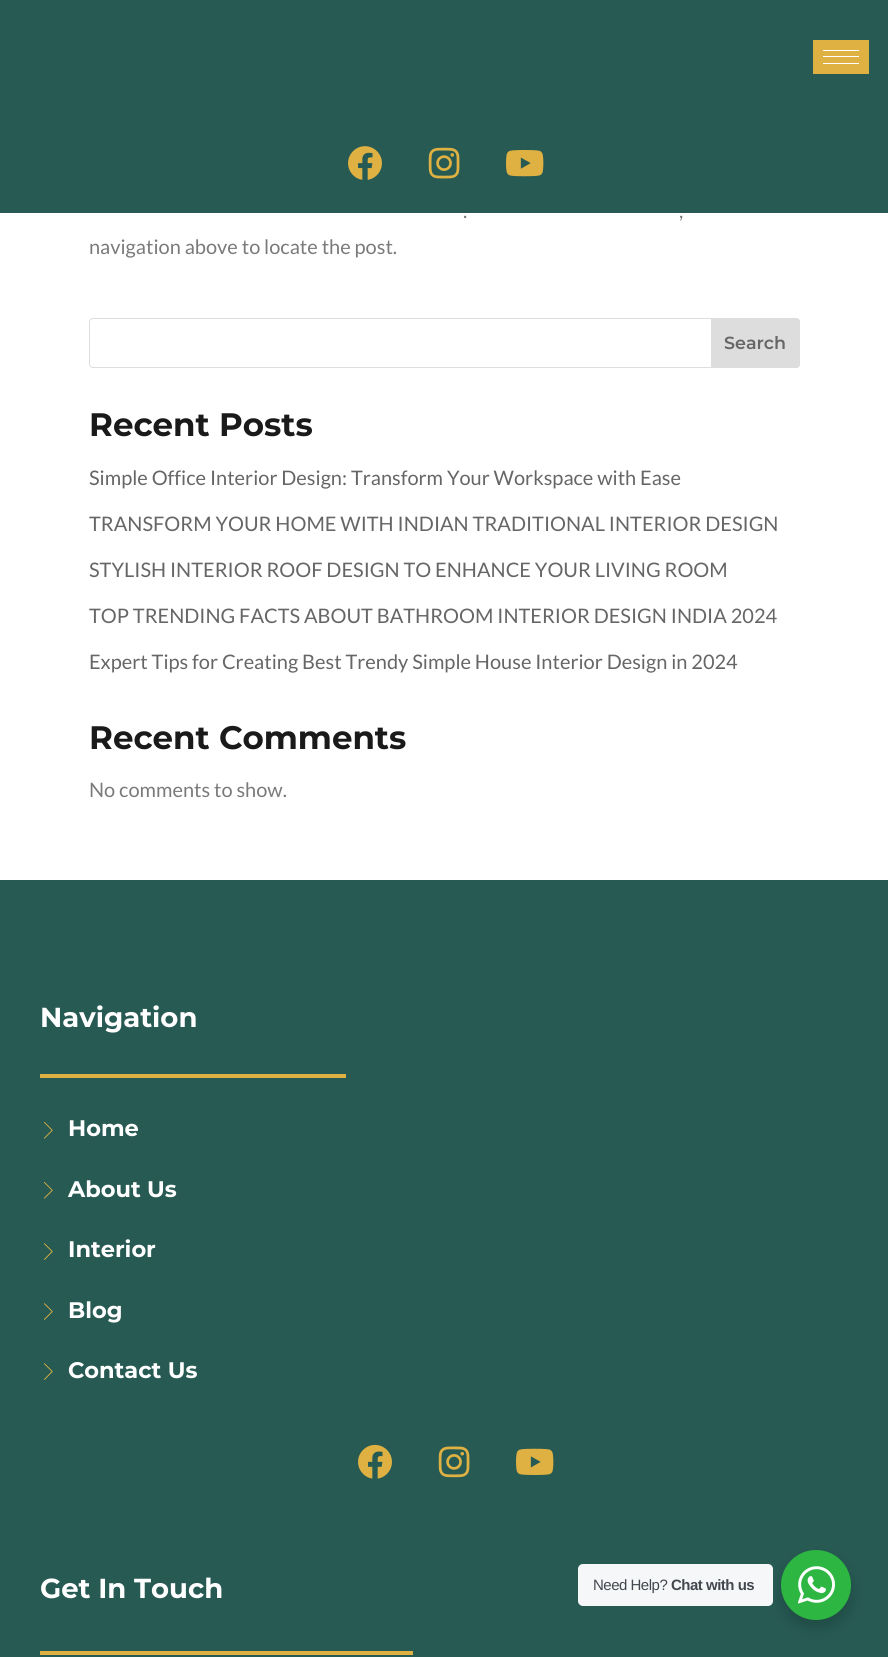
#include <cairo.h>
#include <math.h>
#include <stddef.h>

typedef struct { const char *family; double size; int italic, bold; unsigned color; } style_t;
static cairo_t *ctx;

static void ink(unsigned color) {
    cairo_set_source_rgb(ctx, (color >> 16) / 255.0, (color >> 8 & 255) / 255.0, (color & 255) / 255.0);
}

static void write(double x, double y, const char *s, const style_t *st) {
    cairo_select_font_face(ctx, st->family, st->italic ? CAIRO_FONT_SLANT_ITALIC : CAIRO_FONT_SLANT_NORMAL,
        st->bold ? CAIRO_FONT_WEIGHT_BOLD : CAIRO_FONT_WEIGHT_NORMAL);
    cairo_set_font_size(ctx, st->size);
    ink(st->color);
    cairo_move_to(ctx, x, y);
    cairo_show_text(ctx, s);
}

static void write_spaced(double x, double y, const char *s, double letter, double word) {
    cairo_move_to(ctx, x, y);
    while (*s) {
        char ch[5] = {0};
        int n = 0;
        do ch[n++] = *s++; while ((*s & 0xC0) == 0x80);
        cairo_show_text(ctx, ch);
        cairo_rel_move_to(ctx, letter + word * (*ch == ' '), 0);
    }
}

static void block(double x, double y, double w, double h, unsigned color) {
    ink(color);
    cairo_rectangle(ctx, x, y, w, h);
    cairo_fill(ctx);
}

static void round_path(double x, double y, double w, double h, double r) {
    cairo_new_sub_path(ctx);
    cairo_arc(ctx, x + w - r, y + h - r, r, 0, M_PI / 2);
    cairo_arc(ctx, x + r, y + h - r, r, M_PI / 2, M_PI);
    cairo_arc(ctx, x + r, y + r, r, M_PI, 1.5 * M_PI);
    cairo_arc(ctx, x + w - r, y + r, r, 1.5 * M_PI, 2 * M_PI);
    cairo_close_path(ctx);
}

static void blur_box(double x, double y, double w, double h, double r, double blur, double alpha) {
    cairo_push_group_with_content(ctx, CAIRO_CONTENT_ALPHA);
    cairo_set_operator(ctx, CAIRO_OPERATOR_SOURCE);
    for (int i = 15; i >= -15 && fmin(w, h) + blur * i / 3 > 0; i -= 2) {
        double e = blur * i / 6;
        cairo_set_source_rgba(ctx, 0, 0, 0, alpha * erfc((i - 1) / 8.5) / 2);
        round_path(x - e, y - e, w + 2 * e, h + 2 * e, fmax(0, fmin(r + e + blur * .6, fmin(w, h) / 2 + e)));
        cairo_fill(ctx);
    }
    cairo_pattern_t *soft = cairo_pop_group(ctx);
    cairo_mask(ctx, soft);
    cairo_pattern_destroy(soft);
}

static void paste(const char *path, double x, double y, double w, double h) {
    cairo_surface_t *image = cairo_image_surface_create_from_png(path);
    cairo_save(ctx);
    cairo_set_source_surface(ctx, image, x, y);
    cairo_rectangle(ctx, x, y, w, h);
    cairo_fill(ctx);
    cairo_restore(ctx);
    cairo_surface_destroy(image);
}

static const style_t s1 = {"Lato", 20, 0, 0, 0x7a7a7a};
static const style_t s2 = {"Montserrat SemiBold", 17.5, 0, 0, 0x666666};
static const style_t s3 = {"Montserrat", 32.5, 0, 1, 0x1a1a1a};
static const style_t s4 = {"Lato", 20, 0, 0, 0x666666};
static const style_t s5 = {"Montserrat", 27.5, 0, 1, 0xffffff};
static const style_t s6 = {"Montserrat", 22.5, 0, 1, 0xffffff};

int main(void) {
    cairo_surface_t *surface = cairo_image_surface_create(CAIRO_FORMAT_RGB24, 888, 1657);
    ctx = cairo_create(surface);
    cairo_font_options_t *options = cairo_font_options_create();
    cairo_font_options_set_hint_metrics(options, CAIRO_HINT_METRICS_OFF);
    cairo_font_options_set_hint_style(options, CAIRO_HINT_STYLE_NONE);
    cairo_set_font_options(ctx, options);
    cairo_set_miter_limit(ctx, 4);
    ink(0xffffff);
    cairo_paint(ctx);
    block(0, 0, 888, 213, 0x275a53);
    block(813, 40, 56, 34, 0xdeb142);
    block(823, 50, 36, 1, 0xffffff);
    block(823, 56, 36, 1, 0xffffff);
    block(823, 63, 36, 1, 0xffffff);
    paste("pic1.png", 348, 146, 34, 34);
    paste("pic2.png", 428, 147, 32, 32);
    paste("pic3.png", 506, 150, 38, 27);
    write(463, 218, ".", &s1);
    write(679, 218, ",", &s1);
    write(89, 254, "navigation above to locate the post.", &s1);
    round_path(89.5, 318.5, 710, 49, 3.5);
    ink(0xdddddd);
    cairo_set_line_width(ctx, 1);
    cairo_stroke(ctx);
    cairo_new_path(ctx);
    cairo_move_to(ctx, 711.5, 318.5);
    cairo_line_to(ctx, 796, 318.5);
    cairo_curve_to(ctx, 798, 318.5, 799.5, 320, 799.5, 322);
    cairo_line_to(ctx, 799.5, 364);
    cairo_curve_to(ctx, 799.5, 366, 798, 367.5, 796, 367.5);
    cairo_line_to(ctx, 711.5, 367.5);
    cairo_close_path(ctx);
    cairo_fill_preserve(ctx);
    cairo_stroke(ctx);
    write(724, 349, "Search", &s2);
    write(89, 436, "Recent Posts", &s3);
    write(89, 485, "Simple Office Interior Design: Transform Your Workspace with Ease", &s4);
    write(89, 531, "TRANSFORM YOUR HOME WITH INDIAN TRADITIONAL INTERIOR DESIGN", &s4);
    write(89, 577, "STYLISH INTERIOR ROOF DESIGN TO ENHANCE YOUR LIVING ROOM", &s4);
    write(89, 623, "TOP TRENDING FACTS ABOUT BATHROOM INTERIOR DESIGN INDIA 2024", &s4);
    write(89, 669, "Expert Tips for Creating Best Trendy Simple House Interior Design in 2024", &s4);
    write(89, 749, "Recent Comments", &s3);
    write(89, 797, "No comments to show.", &s1);
    block(0, 880, 888, 777, 0x275a53);
    write(40, 1027, "Navigation", &s5);
    block(40, 1074, 306, 4, 0xdeb142);
    paste("pic4.png", 44, 1122, 9, 17);
    write(68, 1136, "Home", &s6);
    paste("pic4.png", 44, 1182, 9, 17);
    write(68, 1197, "About Us", &s6);
    paste("pic5.png", 44, 1243, 9, 17);
    write(68, 1257, "Interior", &s6);
    paste("pic5.png", 44, 1303, 9, 17);
    write(68, 1318, "Blog", &s6);
    paste("pic5.png", 44, 1363, 9, 17);
    write(68, 1378, "Contact Us", &s6);
    paste("pic6.png", 358, 1444, 34, 35);
    paste("pic7.png", 438, 1446, 32, 32);
    paste("pic8.png", 516, 1448, 38, 27);
    write(40, 1598, "Get In Touch", &s5);
    block(40, 1651, 373, 4, 0xdeb142);
    ink(0x000000);
    blur_box(779, 1555, 75, 75, 37.5, 5, 0.14);
    ink(0xf5f7f9);
    round_path(578, 1564, 195, 42, 5);
    cairo_fill(ctx);
    cairo_select_font_face(ctx, "Liberation Sans", CAIRO_FONT_SLANT_NORMAL, CAIRO_FONT_WEIGHT_NORMAL);
    cairo_set_font_size(ctx, 15);
    ink(0x43474e);
    write_spaced(593, 1590, "Need Help?", -0.5, 0);
    cairo_select_font_face(ctx, "Liberation Sans", CAIRO_FONT_SLANT_NORMAL, CAIRO_FONT_WEIGHT_BOLD);
    write_spaced(671, 1590, "Chat with us", -0.5, 0);
    ink(0x2db742);
    cairo_new_path(ctx);
    cairo_arc(ctx, 816, 1585, 35, 0, 2 * M_PI);
    cairo_fill(ctx);
    paste("pic9.png", 798, 1566, 37, 38);
    cairo_surface_write_to_png(surface, "screenshot.png");
    cairo_font_options_destroy(options);
    cairo_destroy(ctx);
    cairo_surface_destroy(surface);
    return 0;
}
